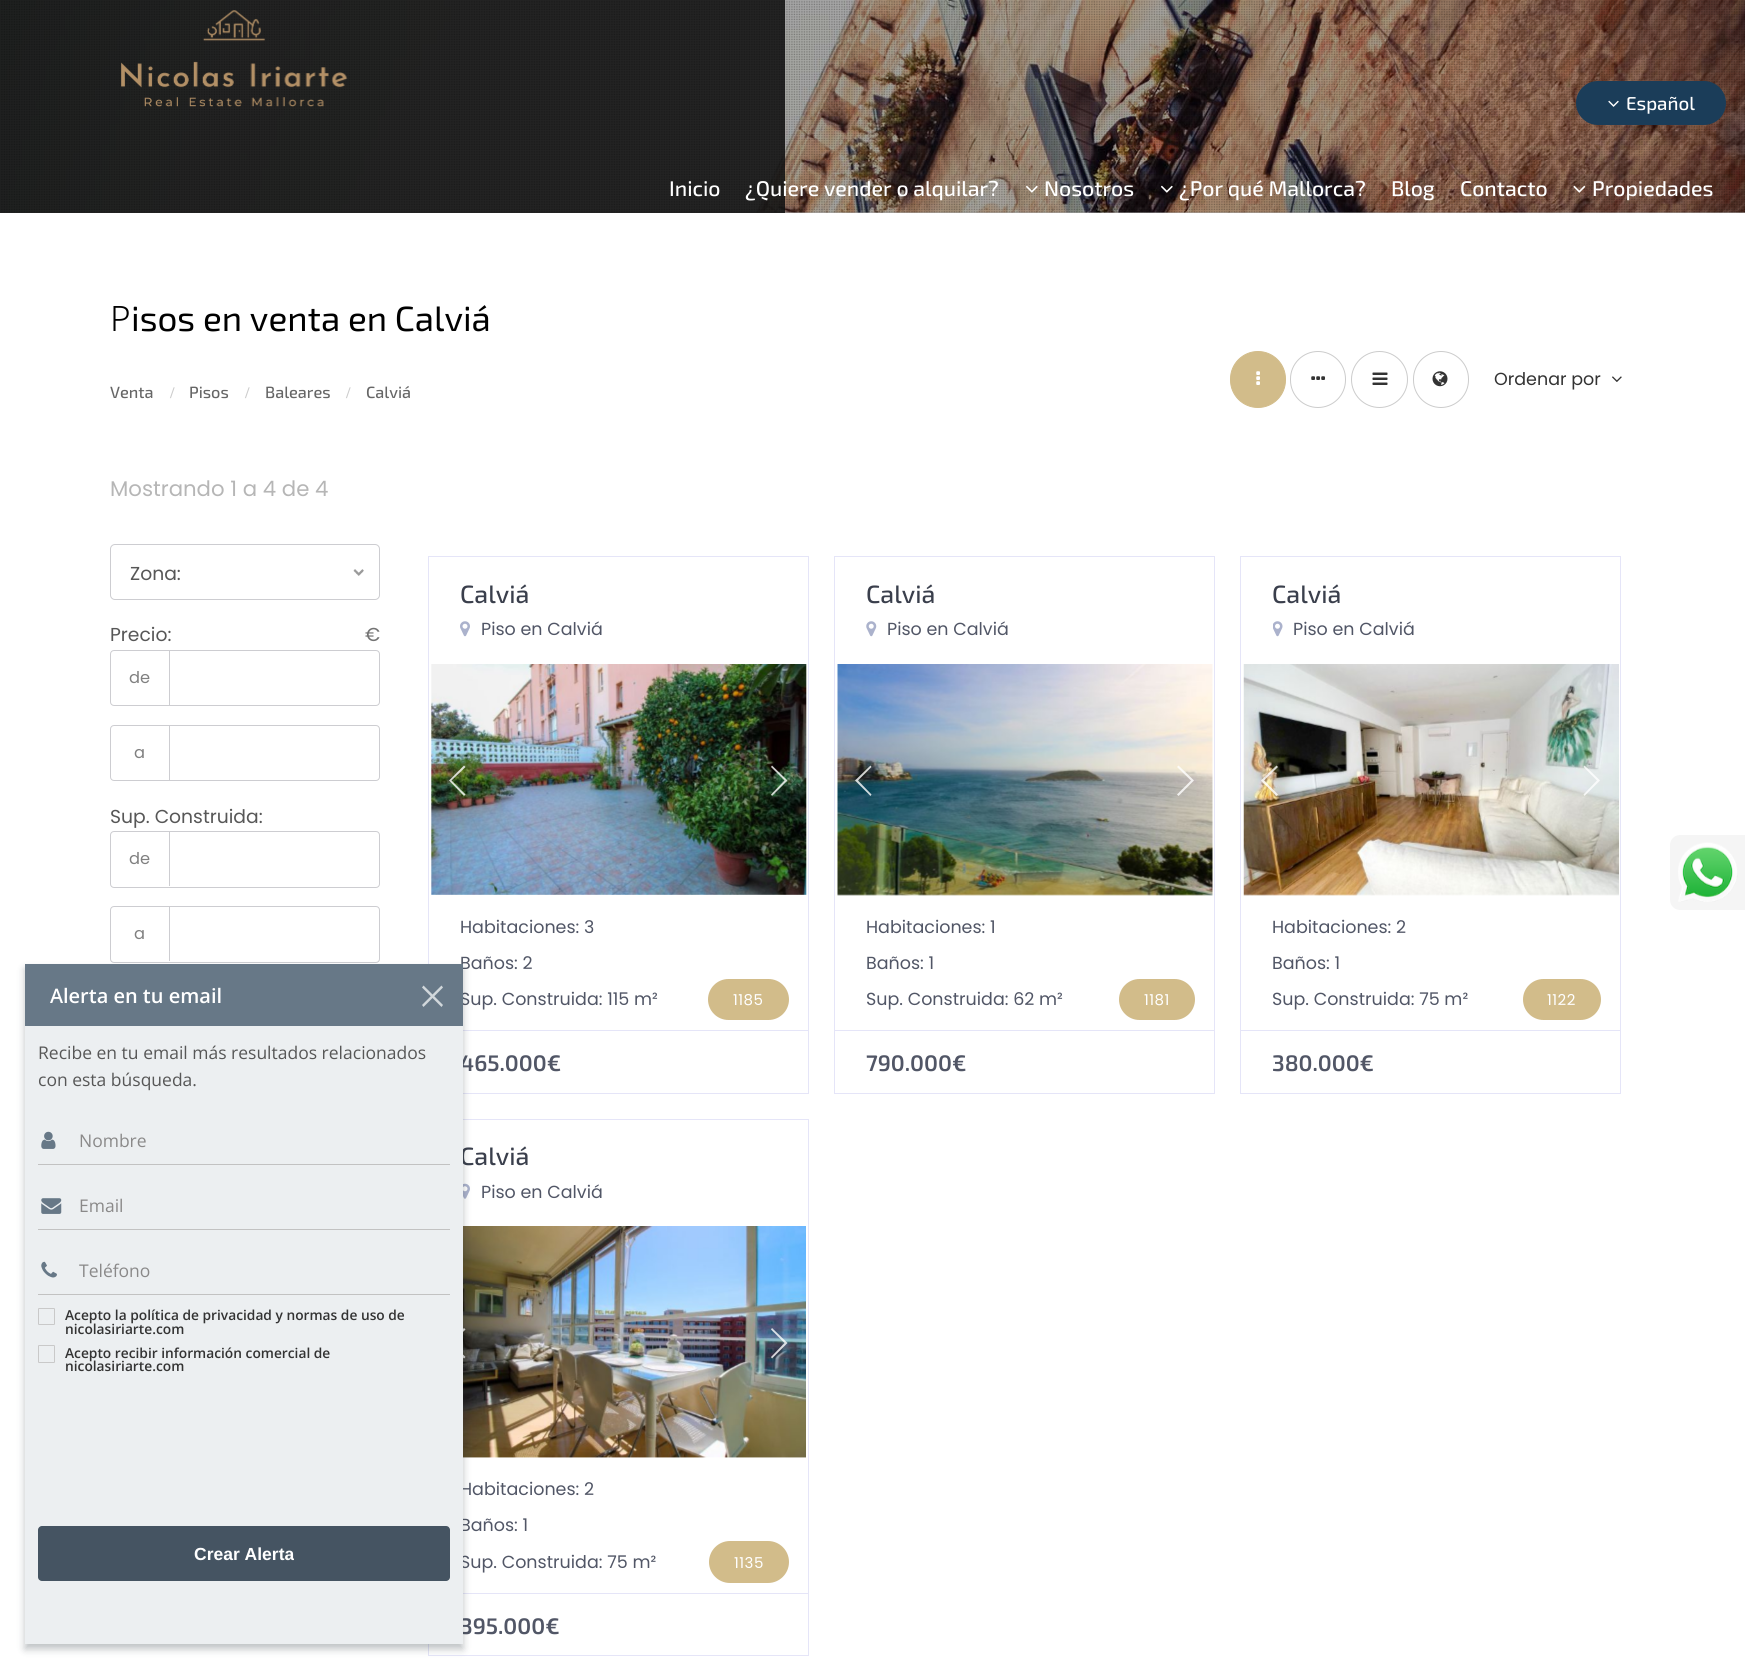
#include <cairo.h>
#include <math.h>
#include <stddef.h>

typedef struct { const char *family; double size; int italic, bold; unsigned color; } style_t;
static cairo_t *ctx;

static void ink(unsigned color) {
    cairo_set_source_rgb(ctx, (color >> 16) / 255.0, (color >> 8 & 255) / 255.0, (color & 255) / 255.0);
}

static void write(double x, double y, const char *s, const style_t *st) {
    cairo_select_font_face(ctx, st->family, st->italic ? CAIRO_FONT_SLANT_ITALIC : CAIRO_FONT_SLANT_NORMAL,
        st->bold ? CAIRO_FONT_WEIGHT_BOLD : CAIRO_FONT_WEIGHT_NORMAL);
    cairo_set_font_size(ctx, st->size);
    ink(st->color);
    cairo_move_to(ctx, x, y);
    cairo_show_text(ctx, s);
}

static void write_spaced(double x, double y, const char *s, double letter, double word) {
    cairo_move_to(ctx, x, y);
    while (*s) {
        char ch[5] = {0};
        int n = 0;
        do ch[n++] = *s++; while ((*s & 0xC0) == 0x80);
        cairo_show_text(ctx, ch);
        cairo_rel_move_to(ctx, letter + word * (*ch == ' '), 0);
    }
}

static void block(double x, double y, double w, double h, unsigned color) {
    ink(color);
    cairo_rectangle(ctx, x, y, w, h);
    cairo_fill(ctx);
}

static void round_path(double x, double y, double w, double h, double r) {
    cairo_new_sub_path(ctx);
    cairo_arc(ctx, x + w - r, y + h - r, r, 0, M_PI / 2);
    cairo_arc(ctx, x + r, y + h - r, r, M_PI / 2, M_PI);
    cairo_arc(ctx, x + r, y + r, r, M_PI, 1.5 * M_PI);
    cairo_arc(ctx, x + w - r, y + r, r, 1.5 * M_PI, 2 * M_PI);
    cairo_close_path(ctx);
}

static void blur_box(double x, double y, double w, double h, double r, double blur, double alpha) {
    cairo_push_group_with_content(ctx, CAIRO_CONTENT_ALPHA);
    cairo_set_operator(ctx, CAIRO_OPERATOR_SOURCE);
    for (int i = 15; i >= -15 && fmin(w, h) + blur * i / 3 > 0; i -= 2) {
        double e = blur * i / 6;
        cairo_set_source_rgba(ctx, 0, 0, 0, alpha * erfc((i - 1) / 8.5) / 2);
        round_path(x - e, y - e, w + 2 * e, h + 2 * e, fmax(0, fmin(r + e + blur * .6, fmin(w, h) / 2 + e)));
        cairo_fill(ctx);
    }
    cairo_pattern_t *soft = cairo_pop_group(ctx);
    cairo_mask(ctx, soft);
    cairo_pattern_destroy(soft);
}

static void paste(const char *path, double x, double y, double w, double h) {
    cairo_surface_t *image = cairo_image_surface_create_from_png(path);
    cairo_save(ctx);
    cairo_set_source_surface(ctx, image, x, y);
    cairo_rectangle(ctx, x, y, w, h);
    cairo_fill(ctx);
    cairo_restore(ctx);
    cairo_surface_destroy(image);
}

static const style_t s1 = {"Exo 2 Medium", 18.75, 0, 0, 0xffffff};
static const style_t s2 = {"Exo 2 Medium", 21.25, 0, 0, 0xffffff};
static const style_t s3 = {"Noto Sans Light", 35, 0, 0, 0x000000};
static const style_t s4 = {"Exo 2", 35, 0, 0, 0x000000};
static const style_t s5 = {"Poppins", 17.5, 0, 0, 0x333333};
static const style_t s6 = {"Exo 2 Medium", 16.25, 0, 0, 0x666666};
static const style_t s7 = {"Liberation Serif", 16.25, 0, 1, 0xcccccc};
static const style_t s8 = {"Poppins", 21.25, 0, 0, 0xb6b6b6};
static const style_t s9 = {"Poppins", 18.75, 0, 0, 0x575757};
static const style_t s10 = {"Poppins", 18.75, 0, 0, 0x737373};
static const style_t s11 = {"Poppins", 16.25, 0, 0, 0x808080};
static const style_t s12 = {"Exo 2 Medium", 25, 0, 0, 0x3a3f4c};
static const style_t s13 = {"Poppins", 17.5, 0, 0, 0x515666};
static const style_t s14 = {"Exo 2 SemiBold", 22.5, 0, 0, 0x515666};
static const style_t s15 = {"Noto Sans Medium", 20, 0, 0, 0xffffff};
static const style_t s16 = {"Open Sans SemiBold", 20, 0, 0, 0xffffff};
static const style_t s17 = {"Open Sans", 17.5, 0, 0, 0x575757};
static const style_t s18 = {"Open Sans", 17.5, 0, 0, 0x8a8989};
static const style_t s19 = {"Open Sans SemiBold", 13.75, 0, 0, 0x333333};
static const style_t s20 = {"Liberation Sans", 17.5, 0, 1, 0xffffff};

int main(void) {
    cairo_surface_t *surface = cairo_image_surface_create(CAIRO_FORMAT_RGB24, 1745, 1668);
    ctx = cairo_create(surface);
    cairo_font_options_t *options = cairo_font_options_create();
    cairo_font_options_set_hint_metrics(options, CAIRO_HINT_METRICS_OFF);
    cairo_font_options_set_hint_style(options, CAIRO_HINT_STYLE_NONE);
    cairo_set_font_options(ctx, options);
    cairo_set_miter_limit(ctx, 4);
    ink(0xffffff);
    cairo_paint(ctx);
    block(0, 212, 1745, 1, 0xa6a6a6);
    paste("pic1.png", 0, 0, 1745, 213);
    cairo_set_source_rgba(ctx, 0.086, 0.086, 0.086, 0.9);
    cairo_rectangle(ctx, 0, 0, 785, 213);
    cairo_fill(ctx);
    paste("pic2.png", 1, 0, 1744, 213);
    paste("pic3.png", 121, 10, 227, 97);
    ink(0x1b3d59);
    round_path(1576, 81, 150, 44, 22);
    cairo_fill(ctx);
    paste("pic4.png", 1608, 100, 11, 7);
    write(1626, 110, "Español", &s1);
    write(669, 196, "Inicio", &s2);
    write(745, 196, "¿Quiere vender o alquilar?", &s2);
    paste("pic5.png", 1026, 185, 12, 8);
    write(1044, 196, "Nosotros", &s2);
    paste("pic6.png", 1161, 185, 12, 8);
    write(1179, 196, "¿Por qué Mallorca?", &s2);
    write(1391, 196, "Blog", &s2);
    write(1460, 196, "Contacto", &s2);
    paste("pic7.png", 1573, 185, 13, 8);
    write(1592, 196, "Propiedades", &s2);
    write(110, 331, "P", &s3);
    write(131, 331, "isos en venta en Calviá", &s4);
    ink(0xd2bc8a);
    round_path(1230.5, 351.5, 55, 56, 27.5);
    cairo_fill_preserve(ctx);
    cairo_set_line_width(ctx, 1);
    cairo_stroke(ctx);
    paste("pic8.png", 1256, 371, 4, 14);
    round_path(1290.5, 351.5, 55, 56, 27.5);
    ink(0xcccccc);
    cairo_stroke(ctx);
    paste("pic9.png", 1311, 376, 14, 4);
    cairo_arc(ctx, 1379.5, 379.5, 28, 0, 2 * M_PI);
    cairo_stroke(ctx);
    paste("pic10.png", 1372, 372, 16, 13);
    round_path(1413.5, 351.5, 55, 56, 27.5);
    cairo_stroke(ctx);
    paste("pic11.png", 1432, 371, 16, 16);
    write(1494, 385, "Ordenar por", &s5);
    paste("pic12.png", 1612, 376, 10, 6);
    write(110, 398, "Venta", &s6);
    write(170, 398, "/", &s7);
    write(189, 398, "Pisos", &s6);
    write(245, 398, "/", &s7);
    write(265, 398, "Baleares", &s6);
    write(346, 398, "/", &s7);
    write(366, 398, "Calviá", &s6);
    write(110, 496, "Mostrando 1 a 4 de 4", &s8);
    paste("pic13.png", 353, 569, 11, 7);
    round_path(110.5, 544.5, 269, 55, 4.5);
    ink(0xcdcdd1);
    cairo_stroke(ctx);
    write(130, 580, "Zona:", &s9);
    write(110, 641, "Precio:", &s9);
    write(365, 641, "€", &s10);
    round_path(110.5, 650.5, 269, 55, 3.5);
    ink(0xcdcdd1);
    cairo_stroke(ctx);
    block(169, 650, 1, 55, 0xcdcdd1);
    write(129, 683, "de", &s11);
    round_path(110.5, 725.5, 269, 55, 3.5);
    ink(0xcdcdd1);
    cairo_stroke(ctx);
    block(169, 725, 1, 55, 0xcdcdd1);
    write(134, 758, "a", &s11);
    write(110, 823, "Sup. Construida:", &s9);
    round_path(110.5, 831.5, 269, 56, 3.5);
    ink(0xcdcdd1);
    cairo_stroke(ctx);
    block(169, 831, 1, 55, 0xcdcdd1);
    write(129, 864, "de", &s11);
    round_path(110.5, 906.5, 269, 56, 3.5);
    ink(0xcdcdd1);
    cairo_stroke(ctx);
    block(169, 906, 1, 55, 0xcdcdd1);
    write(134, 939, "a", &s11);
    cairo_rectangle(ctx, 428.5, 556.5, 380, 537);
    ink(0xe5e5f8);
    cairo_stroke(ctx);
    write(460, 603, "Calviá", &s12);
    paste("pic14.png", 460, 621, 10, 16);
    write(481, 635, "Piso en Calviá", &s13);
    write(460, 933, "Habitaciones: 3", &s13);
    write(460, 969, "Baños: 2", &s13);
    write(460, 1005, "Sup. Construida: 115 m²", &s13);
    block(463, 1030, 345, 1, 0xe5e5f8);
    write(460, 1071, "465.000€", &s14);
    paste("pic15.png", 431, 664, 376, 231);
    cairo_set_source_rgba(ctx, 1, 1, 1, 0.8);
    cairo_new_path(ctx);
    cairo_move_to(ctx, 449, 780.5);
    cairo_line_to(ctx, 464, 765.5);
    cairo_line_to(ctx, 465.5, 767);
    cairo_line_to(ctx, 451.5, 780.5);
    cairo_line_to(ctx, 465.5, 794.5);
    cairo_line_to(ctx, 464, 796);
    cairo_close_path(ctx);
    cairo_fill(ctx);
    cairo_new_path(ctx);
    cairo_move_to(ctx, 787.5, 780.5);
    cairo_line_to(ctx, 772, 796);
    cairo_line_to(ctx, 771, 794.5);
    cairo_line_to(ctx, 784.5, 780.5);
    cairo_line_to(ctx, 771, 767);
    cairo_line_to(ctx, 772, 765.5);
    cairo_close_path(ctx);
    cairo_fill(ctx);
    ink(0xd2bc8a);
    round_path(708, 979, 81, 41, 20.5);
    cairo_fill(ctx);
    cairo_select_font_face(ctx, "Poppins", CAIRO_FONT_SLANT_NORMAL, CAIRO_FONT_WEIGHT_NORMAL);
    cairo_set_font_size(ctx, 15);
    ink(0xffffff);
    write_spaced(733, 1005, "1185", 0.5, 0);
    cairo_rectangle(ctx, 834.5, 556.5, 380, 537);
    ink(0xe5e5f8);
    cairo_stroke(ctx);
    write(866, 603, "Calviá", &s12);
    paste("pic16.png", 866, 621, 11, 16);
    write(887, 635, "Piso en Calviá", &s13);
    write(866, 933, "Habitaciones: 1", &s13);
    write(866, 969, "Baños: 1", &s13);
    write(866, 1005, "Sup. Construida: 62 m²", &s13);
    block(835, 1030, 379, 1, 0xe5e5f8);
    write(866, 1071, "790.000€", &s14);
    paste("pic17.png", 837, 664, 376, 232);
    cairo_set_source_rgba(ctx, 1, 1, 1, 0.8);
    cairo_new_path(ctx);
    cairo_move_to(ctx, 855, 780.5);
    cairo_line_to(ctx, 870.5, 765.5);
    cairo_line_to(ctx, 871.5, 767);
    cairo_line_to(ctx, 858, 780.5);
    cairo_line_to(ctx, 871.5, 794.5);
    cairo_line_to(ctx, 870.5, 796);
    cairo_close_path(ctx);
    cairo_fill(ctx);
    cairo_new_path(ctx);
    cairo_move_to(ctx, 1194, 780.5);
    cairo_line_to(ctx, 1178.5, 796);
    cairo_line_to(ctx, 1177, 794.5);
    cairo_line_to(ctx, 1191, 780.5);
    cairo_line_to(ctx, 1177, 767);
    cairo_line_to(ctx, 1178.5, 765.5);
    cairo_close_path(ctx);
    cairo_fill(ctx);
    ink(0xd2bc8a);
    round_path(1119, 979, 76, 41, 20.5);
    cairo_fill(ctx);
    cairo_select_font_face(ctx, "Poppins", CAIRO_FONT_SLANT_NORMAL, CAIRO_FONT_WEIGHT_NORMAL);
    cairo_set_font_size(ctx, 15);
    ink(0xffffff);
    write_spaced(1144, 1005, "1181", 0.5, 0);
    cairo_rectangle(ctx, 1240.5, 556.5, 380, 537);
    ink(0xe5e5f8);
    cairo_stroke(ctx);
    write(1272, 603, "Calviá", &s12);
    paste("pic18.png", 1273, 621, 10, 16);
    write(1293, 635, "Piso en Calviá", &s13);
    write(1272, 933, "Habitaciones: 2", &s13);
    write(1272, 969, "Baños: 1", &s13);
    write(1272, 1005, "Sup. Construida: 75 m²", &s13);
    block(1241, 1030, 379, 1, 0xe5e5f8);
    write(1272, 1071, "380.000€", &s14);
    paste("pic19.png", 1243, 664, 376, 232);
    cairo_set_source_rgba(ctx, 1, 1, 1, 0.8);
    cairo_new_path(ctx);
    cairo_move_to(ctx, 1261, 780.5);
    cairo_line_to(ctx, 1276.5, 765.5);
    cairo_line_to(ctx, 1278, 767);
    cairo_line_to(ctx, 1264, 780.5);
    cairo_line_to(ctx, 1278, 794.5);
    cairo_line_to(ctx, 1276.5, 796);
    cairo_close_path(ctx);
    cairo_fill(ctx);
    cairo_new_path(ctx);
    cairo_move_to(ctx, 1600, 780.5);
    cairo_line_to(ctx, 1584.5, 796);
    cairo_line_to(ctx, 1583.5, 794.5);
    cairo_line_to(ctx, 1597, 780.5);
    cairo_line_to(ctx, 1583.5, 767);
    cairo_line_to(ctx, 1584.5, 765.5);
    cairo_close_path(ctx);
    cairo_fill(ctx);
    ink(0xd2bc8a);
    round_path(1523, 979, 78, 41, 20.5);
    cairo_fill(ctx);
    cairo_select_font_face(ctx, "Poppins", CAIRO_FONT_SLANT_NORMAL, CAIRO_FONT_WEIGHT_NORMAL);
    cairo_set_font_size(ctx, 15);
    ink(0xffffff);
    write_spaced(1547, 1005, "1122", 0.5, 0);
    cairo_rectangle(ctx, 428.5, 1119.5, 380, 536);
    ink(0xe5e5f8);
    cairo_stroke(ctx);
    write(460, 1165, "Calviá", &s12);
    paste("pic20.png", 463, 1183, 7, 16);
    write(481, 1198, "Piso en Calviá", &s13);
    write(460, 1495, "Habitaciones: 2", &s13);
    write(460, 1531, "Baños: 1", &s13);
    write(460, 1568, "Sup. Construida: 75 m²", &s13);
    block(463, 1593, 345, 1, 0xe5e5f8);
    write(460, 1634, "395.000€", &s14);
    paste("pic21.png", 463, 1226, 343, 232);
    cairo_set_source_rgba(ctx, 1, 1, 1, 0.8);
    cairo_new_path(ctx);
    cairo_move_to(ctx, 449, 1343);
    cairo_line_to(ctx, 464, 1328);
    cairo_line_to(ctx, 465.5, 1329.5);
    cairo_line_to(ctx, 451.5, 1343);
    cairo_line_to(ctx, 465.5, 1357);
    cairo_line_to(ctx, 464, 1358.5);
    cairo_close_path(ctx);
    cairo_fill(ctx);
    cairo_new_path(ctx);
    cairo_move_to(ctx, 787.5, 1343);
    cairo_line_to(ctx, 772, 1358.5);
    cairo_line_to(ctx, 771, 1357);
    cairo_line_to(ctx, 784.5, 1343);
    cairo_line_to(ctx, 771, 1329.5);
    cairo_line_to(ctx, 772, 1328);
    cairo_close_path(ctx);
    cairo_fill(ctx);
    ink(0xd2bc8a);
    round_path(709, 1541, 80, 42, 21);
    cairo_fill(ctx);
    cairo_select_font_face(ctx, "Poppins", CAIRO_FONT_SLANT_NORMAL, CAIRO_FONT_WEIGHT_NORMAL);
    cairo_set_font_size(ctx, 15);
    ink(0xffffff);
    write_spaced(734, 1568, "1135", 0.5, 0);
    ink(0x233238);
    blur_box(25, 969, 438, 680, 0, 4, 0.3);
    block(25, 1026, 438, 618, 0xeceff1);
    block(25, 964, 438, 62, 0x677887);
    write(50, 1003, "A", &s15);
    write(63, 1003, "lerta en tu email", &s16);
    ink(0xd1d7db);
    cairo_new_path(ctx);
    cairo_move_to(ctx, 423.5, 985.5);
    cairo_line_to(ctx, 443, 1005);
    cairo_line_to(ctx, 441.5, 1007);
    cairo_line_to(ctx, 422, 987.5);
    cairo_close_path(ctx);
    cairo_fill(ctx);
    cairo_new_path(ctx);
    cairo_move_to(ctx, 422, 1005);
    cairo_line_to(ctx, 441.5, 985.5);
    cairo_line_to(ctx, 443, 987.5);
    cairo_line_to(ctx, 423.5, 1007);
    cairo_close_path(ctx);
    cairo_fill(ctx);
    write(38, 1059, "Recibe en tu email más resultados relacionados", &s17);
    write(38, 1086, "con esta búsqueda.", &s17);
    paste("pic22.png", 41, 1131, 15, 18);
    block(38, 1164, 412, 1, 0xc2c2c2);
    write(79, 1147, "Nombre", &s18);
    paste("pic23.png", 41, 1198, 21, 16);
    block(38, 1229, 412, 1, 0xc2c2c2);
    write(79, 1212, "Email", &s18);
    paste("pic24.png", 41, 1261, 16, 17);
    block(38, 1294, 412, 1, 0xc2c2c2);
    write(79, 1277, "Teléfono", &s18);
    round_path(38.5, 1308.5, 16, 16, 0.5);
    ink(0xc9c9c9);
    cairo_stroke(ctx);
    write(65, 1320, "Acepto la política de privacidad y normas de uso de", &s19);
    write(65, 1334, "nicolasiriarte.com", &s19);
    round_path(38.5, 1345.5, 16, 17, 0.5);
    ink(0xc9c9c9);
    cairo_stroke(ctx);
    write(65, 1358, "Acepto recibir información comercial de", &s19);
    write(65, 1371, "nicolasiriarte.com", &s19);
    ink(0x455462);
    round_path(38, 1526, 412, 55, 4);
    cairo_fill(ctx);
    write(194, 1560, "Crear Alerta", &s20);
    ink(0xf5f5f5);
    cairo_new_path(ctx);
    cairo_move_to(ctx, 1680, 835);
    cairo_line_to(ctx, 1745, 835);
    cairo_line_to(ctx, 1745, 910);
    cairo_line_to(ctx, 1680, 910);
    cairo_curve_to(ctx, 1674.5, 910, 1670, 905.5, 1670, 900);
    cairo_line_to(ctx, 1670, 845);
    cairo_curve_to(ctx, 1670, 839.5, 1674.5, 835, 1680, 835);
    cairo_close_path(ctx);
    cairo_fill(ctx);
    paste("pic25.png", 1678, 842, 60, 60);
    cairo_surface_write_to_png(surface, "screenshot.png");
    cairo_font_options_destroy(options);
    cairo_destroy(ctx);
    cairo_surface_destroy(surface);
    return 0;
}
